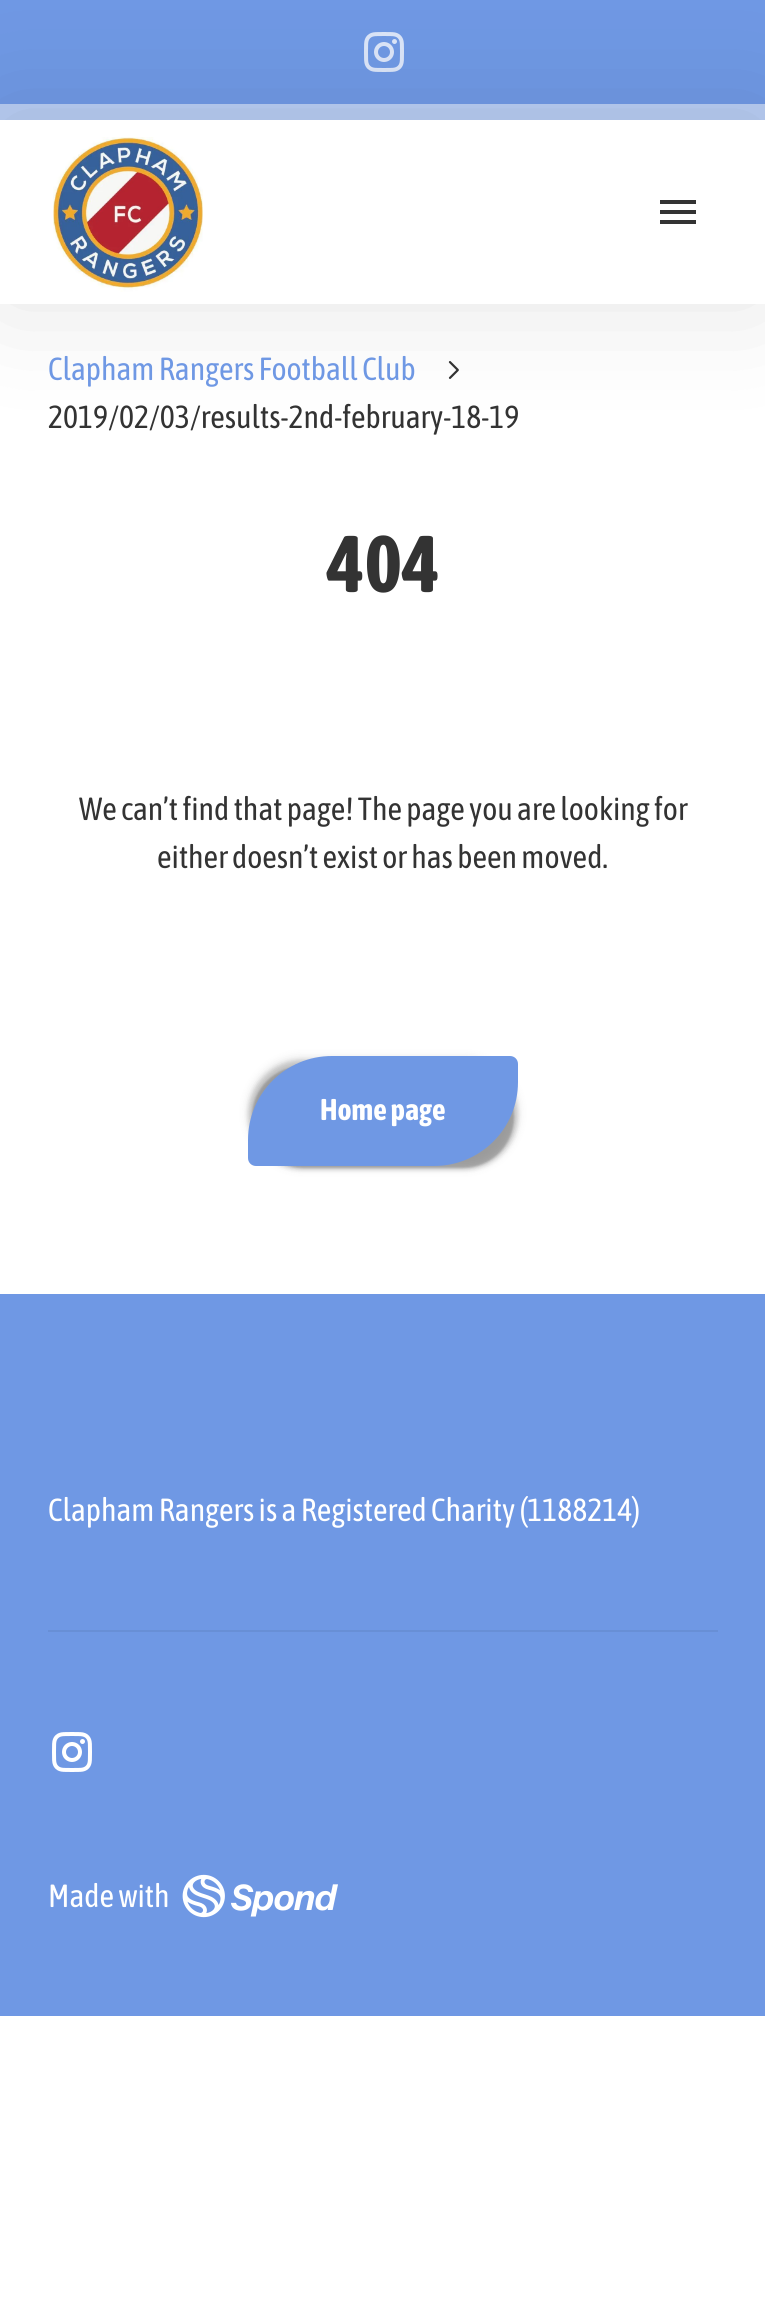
#include <cairo.h>
#include <math.h>
#include <stddef.h>

typedef struct { const char *family; double size; int italic, bold; unsigned color; } style_t;
static cairo_t *ctx;

static void ink(unsigned color) {
    cairo_set_source_rgb(ctx, (color >> 16) / 255.0, (color >> 8 & 255) / 255.0, (color & 255) / 255.0);
}

static void write(double x, double y, const char *s, const style_t *st) {
    cairo_select_font_face(ctx, st->family, st->italic ? CAIRO_FONT_SLANT_ITALIC : CAIRO_FONT_SLANT_NORMAL,
        st->bold ? CAIRO_FONT_WEIGHT_BOLD : CAIRO_FONT_WEIGHT_NORMAL);
    cairo_set_font_size(ctx, st->size);
    ink(st->color);
    cairo_move_to(ctx, x, y);
    cairo_show_text(ctx, s);
}

static void block(double x, double y, double w, double h, unsigned color) {
    ink(color);
    cairo_rectangle(ctx, x, y, w, h);
    cairo_fill(ctx);
}

static void round_path(double x, double y, double w, double h, double r) {
    cairo_new_sub_path(ctx);
    cairo_arc(ctx, x + w - r, y + h - r, r, 0, M_PI / 2);
    cairo_arc(ctx, x + r, y + h - r, r, M_PI / 2, M_PI);
    cairo_arc(ctx, x + r, y + r, r, M_PI, 1.5 * M_PI);
    cairo_arc(ctx, x + w - r, y + r, r, 1.5 * M_PI, 2 * M_PI);
    cairo_close_path(ctx);
}

static void blur_box(double x, double y, double w, double h, double r, double blur, double alpha) {
    cairo_push_group_with_content(ctx, CAIRO_CONTENT_ALPHA);
    cairo_set_operator(ctx, CAIRO_OPERATOR_SOURCE);
    for (int i = 15; i >= -15 && fmin(w, h) + blur * i / 3 > 0; i -= 2) {
        double e = blur * i / 6;
        cairo_set_source_rgba(ctx, 0, 0, 0, alpha * erfc((i - 1) / 8.5) / 2);
        round_path(x - e, y - e, w + 2 * e, h + 2 * e, fmax(0, fmin(r + e + blur * .6, fmin(w, h) / 2 + e)));
        cairo_fill(ctx);
    }
    cairo_pattern_t *soft = cairo_pop_group(ctx);
    cairo_mask(ctx, soft);
    cairo_pattern_destroy(soft);
}

static void paste(const char *path, double x, double y, double w, double h) {
    cairo_surface_t *image = cairo_image_surface_create_from_png(path);
    cairo_save(ctx);
    cairo_set_source_surface(ctx, image, x, y);
    cairo_rectangle(ctx, x, y, w, h);
    cairo_fill(ctx);
    cairo_restore(ctx);
    cairo_surface_destroy(image);
}

static const style_t s1 = {"Asap Condensed", 32, 0, 0, 0x6f98e4};
static const style_t s2 = {"Asap Condensed", 32, 0, 0, 0x333333};
static const style_t s3 = {"Asap Condensed", 80, 0, 1, 0x333333};
static const style_t s4 = {"Asap Condensed", 30, 0, 1, 0xffffff};
static const style_t s5 = {"Asap Condensed", 32, 0, 0, 0xffffff};

int main(void) {
    cairo_surface_t *surface = cairo_image_surface_create(CAIRO_FORMAT_RGB24, 765, 2298);
    ctx = cairo_create(surface);
    cairo_font_options_t *options = cairo_font_options_create();
    cairo_font_options_set_hint_metrics(options, CAIRO_HINT_METRICS_OFF);
    cairo_font_options_set_hint_style(options, CAIRO_HINT_STYLE_NONE);
    cairo_set_font_options(ctx, options);
    cairo_set_miter_limit(ctx, 4);
    ink(0xffffff);
    cairo_paint(ctx);
    block(0, 0, 765, 104, 0x6f98e4);
    paste("pic1.png", 364, 32, 40, 40);
    block(0, 104, 765, 16, 0xb7ccf2);
    paste("pic3.png", 448, 361, 11, 18);
    cairo_save(ctx);
    cairo_set_fill_rule(ctx, CAIRO_FILL_RULE_EVEN_ODD);
    cairo_new_path(ctx);
    cairo_move_to(ctx, 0, 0);
    cairo_line_to(ctx, 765, 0);
    cairo_line_to(ctx, 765, 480);
    cairo_line_to(ctx, 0, 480);
    cairo_close_path(ctx);
    cairo_move_to(ctx, 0, 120);
    cairo_line_to(ctx, 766, 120);
    cairo_line_to(ctx, 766, 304);
    cairo_line_to(ctx, 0, 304);
    cairo_close_path(ctx);
    cairo_clip(ctx);
    ink(0x000000);
    blur_box(0, 118, 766, 184, 0, 59, 0.11);
    cairo_restore(ctx);
    paste("pic2.png", 53, 137, 150, 155);
    ink(0x333333);
    cairo_new_path(ctx);
    cairo_move_to(ctx, 660, 224);
    cairo_line_to(ctx, 696, 224);
    cairo_line_to(ctx, 696, 220);
    cairo_line_to(ctx, 660, 220);
    cairo_close_path(ctx);
    cairo_move_to(ctx, 660, 214);
    cairo_line_to(ctx, 696, 214);
    cairo_line_to(ctx, 696, 210);
    cairo_line_to(ctx, 660, 210);
    cairo_close_path(ctx);
    cairo_move_to(ctx, 660, 200);
    cairo_line_to(ctx, 660, 204);
    cairo_line_to(ctx, 696, 204);
    cairo_line_to(ctx, 696, 200);
    cairo_close_path(ctx);
    cairo_fill(ctx);
    write(48, 380, "Clapham Rangers Football Club", &s1);
    write(48, 428, "2019/02/03/results-2nd-february-18-19", &s2);
    write(327, 592, "404", &s3);
    write(79, 820, "We can’t find that page! The page you are looking for", &s2);
    write(157, 868, "either doesn’t exist or has been moved.", &s2);
    ink(0x000000);
    blur_box(252, 1066, 262, 102, 80, 1, 0.2);
    blur_box(248, 1060, 270, 110, 84, 2, 0.14);
    blur_box(248, 1058, 270, 110, 84, 5, 0.12);
    ink(0x6f98e4);
    cairo_new_path(ctx);
    cairo_move_to(ctx, 332, 1056);
    cairo_line_to(ctx, 510, 1056);
    cairo_curve_to(ctx, 514.5, 1056, 518, 1059.5, 518, 1064);
    cairo_line_to(ctx, 518, 1082);
    cairo_curve_to(ctx, 518, 1128.5, 480.5, 1166, 434, 1166);
    cairo_line_to(ctx, 256, 1166);
    cairo_curve_to(ctx, 251.5, 1166, 248, 1162.5, 248, 1158);
    cairo_line_to(ctx, 248, 1140);
    cairo_curve_to(ctx, 248, 1093.5, 285.5, 1056, 332, 1056);
    cairo_close_path(ctx);
    cairo_fill(ctx);
    write(320, 1120, "Home page", &s4);
    block(0, 1294, 765, 722, 0x6f98e4);
    write(48, 1521, "Clapham Rangers is a Registered Charity (1188214)", &s5);
    block(48, 1630, 670, 2, 0x688fd6);
    paste("pic4.png", 52, 1732, 40, 40);
    write(48, 1907, "Made with", &s5);
    paste("pic5.png", 182, 1874, 156, 44);
    cairo_surface_write_to_png(surface, "screenshot.png");
    cairo_font_options_destroy(options);
    cairo_destroy(ctx);
    cairo_surface_destroy(surface);
    return 0;
}
